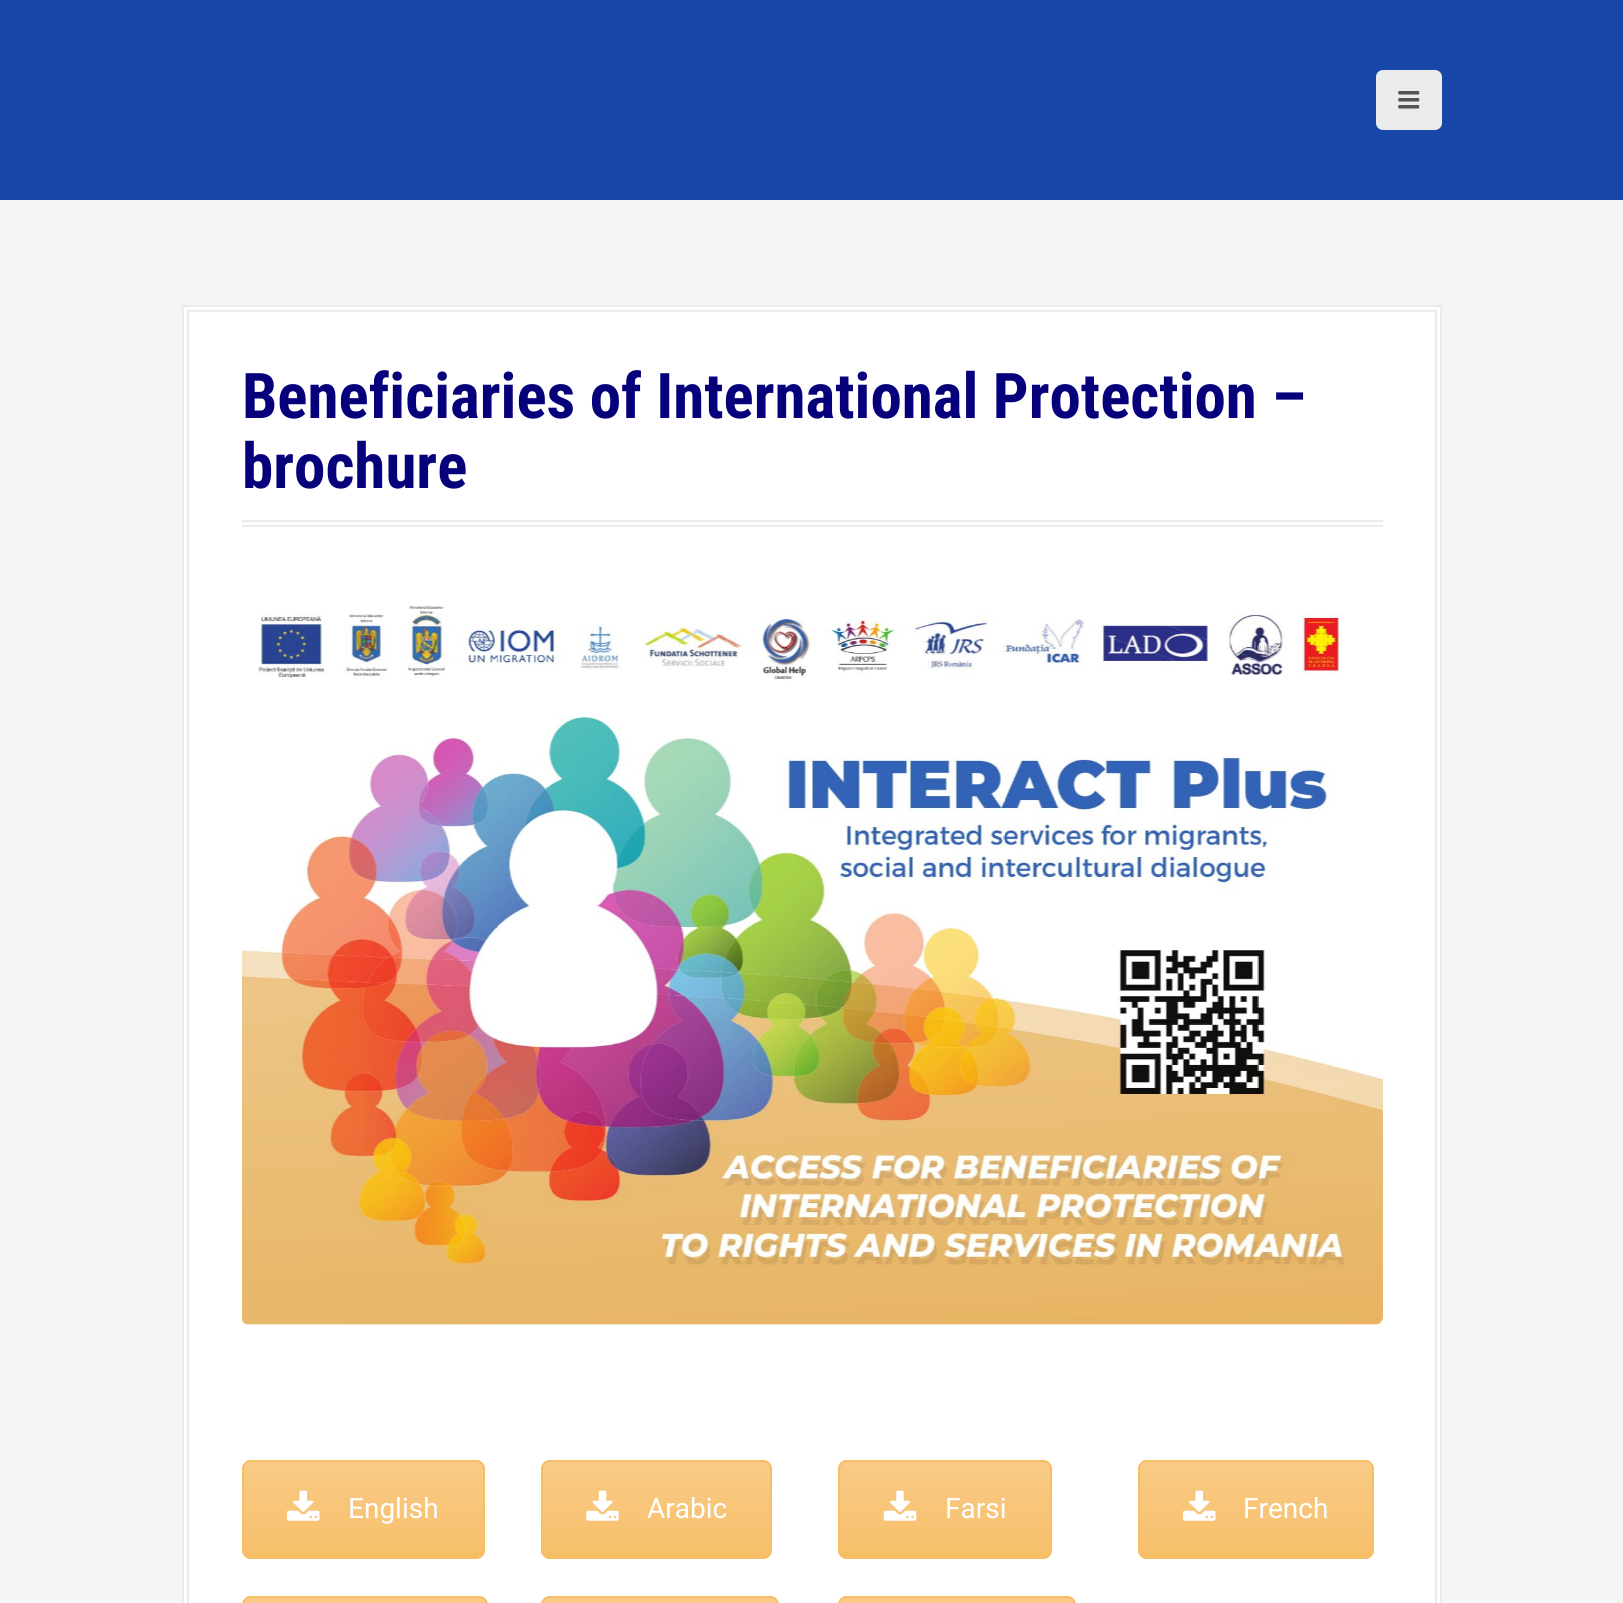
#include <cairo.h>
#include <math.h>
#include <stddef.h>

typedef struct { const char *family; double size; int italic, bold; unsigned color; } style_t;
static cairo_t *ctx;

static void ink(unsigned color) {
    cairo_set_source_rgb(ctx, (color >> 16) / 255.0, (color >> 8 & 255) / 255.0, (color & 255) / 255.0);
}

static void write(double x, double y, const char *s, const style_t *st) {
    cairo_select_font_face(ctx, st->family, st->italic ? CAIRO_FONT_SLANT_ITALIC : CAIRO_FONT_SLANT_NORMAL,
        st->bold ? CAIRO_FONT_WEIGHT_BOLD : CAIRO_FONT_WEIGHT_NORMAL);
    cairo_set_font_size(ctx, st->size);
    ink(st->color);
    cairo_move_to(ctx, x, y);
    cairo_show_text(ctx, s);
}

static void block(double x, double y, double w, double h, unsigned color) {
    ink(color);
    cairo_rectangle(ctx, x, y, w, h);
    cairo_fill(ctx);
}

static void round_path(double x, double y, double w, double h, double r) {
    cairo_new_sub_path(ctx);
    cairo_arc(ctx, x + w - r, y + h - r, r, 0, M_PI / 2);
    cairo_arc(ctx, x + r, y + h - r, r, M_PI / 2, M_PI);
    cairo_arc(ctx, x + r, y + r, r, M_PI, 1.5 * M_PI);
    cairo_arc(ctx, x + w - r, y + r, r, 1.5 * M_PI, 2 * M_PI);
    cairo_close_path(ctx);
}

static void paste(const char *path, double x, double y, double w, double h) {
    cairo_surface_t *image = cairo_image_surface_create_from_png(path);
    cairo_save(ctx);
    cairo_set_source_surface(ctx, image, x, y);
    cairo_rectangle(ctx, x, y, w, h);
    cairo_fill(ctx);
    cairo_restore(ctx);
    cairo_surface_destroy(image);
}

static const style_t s1 = {"Roboto Condensed", 63, 0, 1, 0x06007a};
static const style_t s2 = {"Roboto", 28, 0, 0, 0xffffff};

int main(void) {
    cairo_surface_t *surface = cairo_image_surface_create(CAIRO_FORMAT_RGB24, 1623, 1603);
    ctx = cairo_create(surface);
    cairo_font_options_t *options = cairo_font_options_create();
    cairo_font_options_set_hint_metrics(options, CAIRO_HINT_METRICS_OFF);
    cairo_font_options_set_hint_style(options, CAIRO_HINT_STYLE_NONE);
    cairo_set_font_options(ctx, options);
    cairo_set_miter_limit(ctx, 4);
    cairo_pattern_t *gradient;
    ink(0xf5f5f5);
    cairo_paint(ctx);
    block(0, 0, 1623, 200, 0x1846a9);
    ink(0xececec);
    round_path(1376, 70, 66, 60, 7);
    cairo_fill(ctx);
    paste("pic1.png", 1398, 91, 22, 18);
    ink(0xffffff);
    cairo_rectangle(ctx, 183, 306, 1258, 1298);
    cairo_fill_preserve(ctx);
    ink(0xebebeb);
    cairo_stroke(ctx);
    cairo_rectangle(ctx, 188, 311, 1248, 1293);
    cairo_stroke(ctx);
    block(242, 520, 1141, 2, 0xebebeb);
    block(242, 525, 1141, 2, 0xebebeb);
    write(242, 418, "Beneficiaries of International Protection –", &s1);
    write(242, 488, "brochure", &s1);
    paste("pic2.png", 242, 605, 1141, 720);
    ink(0xf7be68);
    round_path(242, 1460, 243, 99, 9);
    cairo_fill(ctx);
    cairo_save(ctx);
    round_path(242, 1460, 243, 99, 9);
    cairo_clip(ctx);
    gradient = cairo_pattern_create_linear(363, 1461, 363, 1558);
    cairo_pattern_add_color_stop_rgba(gradient, 0, 1, 1, 1, 0.2);
    cairo_pattern_add_color_stop_rgba(gradient, 1, 1, 1, 1, 0.01);
    cairo_set_source(ctx, gradient);
    cairo_pattern_destroy(gradient);
    cairo_rectangle(ctx, 242, 1461, 243, 91);
    cairo_fill(ctx);
    cairo_restore(ctx);
    round_path(243, 1461, 241, 97, 8);
    cairo_stroke(ctx);
    paste("pic3.png", 287, 1490, 33, 31);
    write(348, 1518, "English", &s2);
    ink(0xf7be68);
    round_path(541, 1460, 231, 99, 9);
    cairo_fill(ctx);
    cairo_save(ctx);
    round_path(541, 1460, 231, 99, 9);
    cairo_clip(ctx);
    gradient = cairo_pattern_create_linear(656, 1461, 656, 1558);
    cairo_pattern_add_color_stop_rgba(gradient, 0, 1, 1, 1, 0.2);
    cairo_pattern_add_color_stop_rgba(gradient, 1, 1, 1, 1, 0.01);
    cairo_set_source(ctx, gradient);
    cairo_pattern_destroy(gradient);
    cairo_rectangle(ctx, 541, 1461, 231, 91);
    cairo_fill(ctx);
    cairo_restore(ctx);
    round_path(542, 1461, 229, 97, 8);
    cairo_stroke(ctx);
    paste("pic4.png", 586, 1490, 33, 31);
    write(647, 1518, "Arabic", &s2);
    ink(0xf7be68);
    round_path(838, 1460, 214, 99, 9);
    cairo_fill(ctx);
    cairo_save(ctx);
    round_path(838, 1460, 214, 99, 9);
    cairo_clip(ctx);
    gradient = cairo_pattern_create_linear(945, 1461, 945, 1558);
    cairo_pattern_add_color_stop_rgba(gradient, 0, 1, 1, 1, 0.2);
    cairo_pattern_add_color_stop_rgba(gradient, 1, 1, 1, 1, 0.01);
    cairo_set_source(ctx, gradient);
    cairo_pattern_destroy(gradient);
    cairo_rectangle(ctx, 838, 1461, 214, 91);
    cairo_fill(ctx);
    cairo_restore(ctx);
    round_path(839, 1461, 212, 97, 8);
    cairo_stroke(ctx);
    paste("pic5.png", 883, 1490, 34, 31);
    write(945, 1518, "Farsi", &s2);
    ink(0xf7be68);
    round_path(1138, 1460, 236, 99, 9);
    cairo_fill(ctx);
    cairo_save(ctx);
    round_path(1138, 1460, 236, 99, 9);
    cairo_clip(ctx);
    gradient = cairo_pattern_create_linear(1256, 1461, 1256, 1558);
    cairo_pattern_add_color_stop_rgba(gradient, 0, 1, 1, 1, 0.2);
    cairo_pattern_add_color_stop_rgba(gradient, 1, 1, 1, 1, 0.01);
    cairo_set_source(ctx, gradient);
    cairo_pattern_destroy(gradient);
    cairo_rectangle(ctx, 1138, 1461, 236, 91);
    cairo_fill(ctx);
    cairo_restore(ctx);
    round_path(1139, 1461, 234, 97, 8);
    cairo_stroke(ctx);
    paste("pic3.png", 1183, 1490, 33, 31);
    write(1243, 1518, "French", &s2);
    ink(0xf7be68);
    round_path(242, 1596, 246, 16, 9);
    cairo_fill(ctx);
    cairo_save(ctx);
    round_path(242, 1596, 246, 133, 9);
    cairo_clip(ctx);
    gradient = cairo_pattern_create_linear(365, 1598, 365, 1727);
    cairo_pattern_add_color_stop_rgba(gradient, 0, 1, 1, 1, 0.2);
    cairo_pattern_add_color_stop_rgba(gradient, 1, 1, 1, 1, 0.01);
    cairo_set_source(ctx, gradient);
    cairo_pattern_destroy(gradient);
    cairo_rectangle(ctx, 242, 1598, 246, 5);
    cairo_fill(ctx);
    cairo_restore(ctx);
    round_path(243, 1597, 244, 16, 8);
    cairo_stroke(ctx);
    round_path(541, 1596, 238, 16, 9);
    cairo_fill(ctx);
    cairo_save(ctx);
    round_path(541, 1596, 238, 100, 9);
    cairo_clip(ctx);
    gradient = cairo_pattern_create_linear(660, 1598, 660, 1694);
    cairo_pattern_add_color_stop_rgba(gradient, 0, 1, 1, 1, 0.2);
    cairo_pattern_add_color_stop_rgba(gradient, 1, 1, 1, 1, 0.01);
    cairo_set_source(ctx, gradient);
    cairo_pattern_destroy(gradient);
    cairo_rectangle(ctx, 541, 1598, 238, 5);
    cairo_fill(ctx);
    cairo_restore(ctx);
    round_path(542, 1597, 236, 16, 8);
    cairo_stroke(ctx);
    round_path(838, 1596, 238, 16, 9);
    cairo_fill(ctx);
    cairo_save(ctx);
    round_path(838, 1596, 238, 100, 9);
    cairo_clip(ctx);
    gradient = cairo_pattern_create_linear(957, 1598, 957, 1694);
    cairo_pattern_add_color_stop_rgba(gradient, 0, 1, 1, 1, 0.2);
    cairo_pattern_add_color_stop_rgba(gradient, 1, 1, 1, 1, 0.01);
    cairo_set_source(ctx, gradient);
    cairo_pattern_destroy(gradient);
    cairo_rectangle(ctx, 838, 1598, 238, 5);
    cairo_fill(ctx);
    cairo_restore(ctx);
    round_path(839, 1597, 236, 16, 8);
    cairo_stroke(ctx);
    cairo_surface_write_to_png(surface, "screenshot.png");
    cairo_font_options_destroy(options);
    cairo_destroy(ctx);
    cairo_surface_destroy(surface);
    return 0;
}
